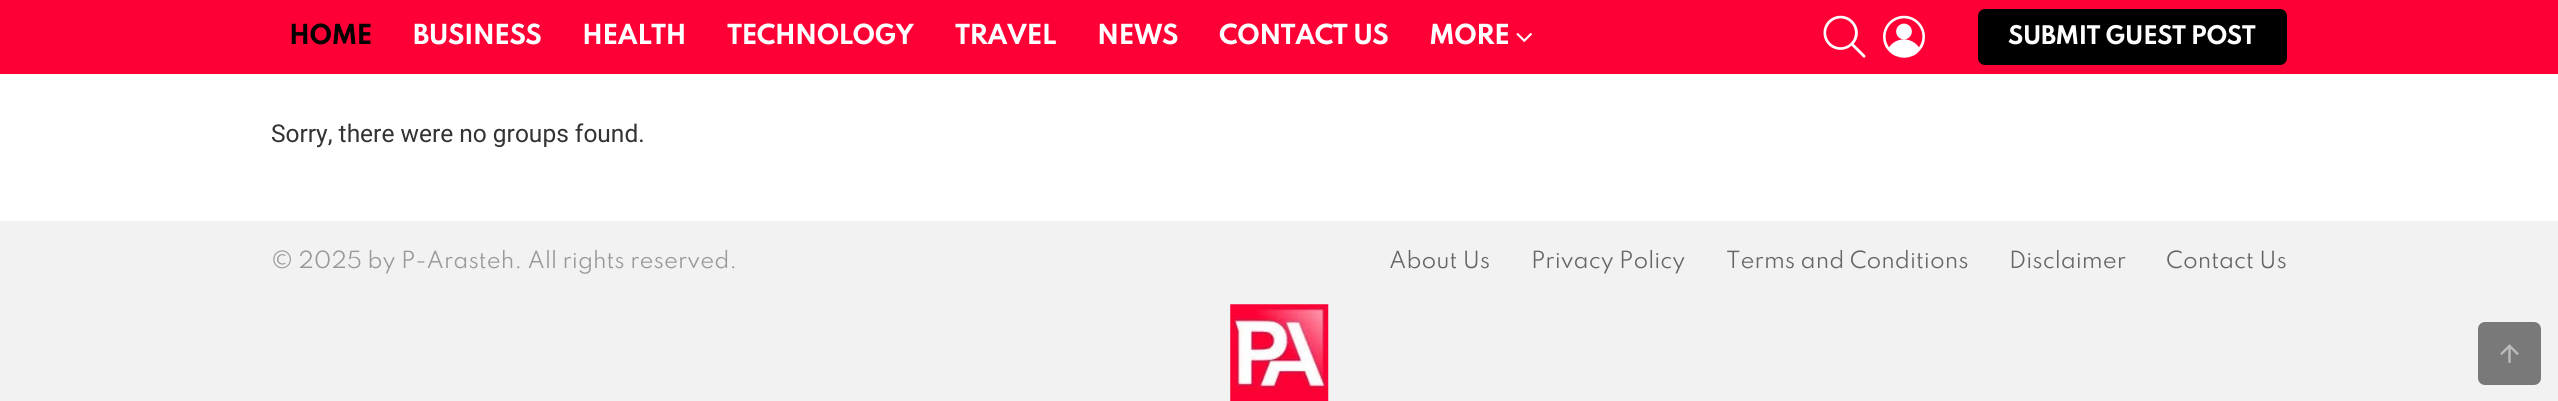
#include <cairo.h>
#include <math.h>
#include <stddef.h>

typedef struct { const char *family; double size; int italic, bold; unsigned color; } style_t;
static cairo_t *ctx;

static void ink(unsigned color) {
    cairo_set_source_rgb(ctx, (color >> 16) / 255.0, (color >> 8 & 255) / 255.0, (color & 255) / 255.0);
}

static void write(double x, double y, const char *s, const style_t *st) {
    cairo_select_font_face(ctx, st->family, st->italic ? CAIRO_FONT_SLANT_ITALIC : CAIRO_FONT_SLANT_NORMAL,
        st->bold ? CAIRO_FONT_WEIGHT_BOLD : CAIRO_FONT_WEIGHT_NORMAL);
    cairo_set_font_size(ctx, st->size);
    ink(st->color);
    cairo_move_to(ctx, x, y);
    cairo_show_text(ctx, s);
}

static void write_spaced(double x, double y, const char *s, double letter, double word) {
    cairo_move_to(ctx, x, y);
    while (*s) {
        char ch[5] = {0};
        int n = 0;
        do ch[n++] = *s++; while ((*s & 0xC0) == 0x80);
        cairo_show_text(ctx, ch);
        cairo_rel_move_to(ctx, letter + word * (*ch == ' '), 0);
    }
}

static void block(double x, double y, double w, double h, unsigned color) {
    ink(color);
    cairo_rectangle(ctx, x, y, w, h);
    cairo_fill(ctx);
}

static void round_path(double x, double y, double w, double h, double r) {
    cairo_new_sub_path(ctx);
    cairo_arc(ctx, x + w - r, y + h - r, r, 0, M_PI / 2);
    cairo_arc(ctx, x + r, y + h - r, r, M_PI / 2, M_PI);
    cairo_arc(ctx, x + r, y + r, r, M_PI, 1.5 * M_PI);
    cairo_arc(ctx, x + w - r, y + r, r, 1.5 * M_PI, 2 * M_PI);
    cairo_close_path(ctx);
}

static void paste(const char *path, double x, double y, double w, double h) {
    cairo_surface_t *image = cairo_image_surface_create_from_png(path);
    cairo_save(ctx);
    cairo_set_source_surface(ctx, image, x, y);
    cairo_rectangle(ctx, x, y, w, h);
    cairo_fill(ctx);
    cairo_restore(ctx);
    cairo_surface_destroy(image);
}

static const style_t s1 = {"Roboto", 24.5, 0, 0, 0x333333};
static const style_t s2 = {"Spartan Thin", 21, 0, 0, 0x999999};
static const style_t s3 = {"Spartan Thin", 21, 0, 0, 0x666666};

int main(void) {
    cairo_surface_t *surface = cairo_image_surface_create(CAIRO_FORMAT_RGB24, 2558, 401);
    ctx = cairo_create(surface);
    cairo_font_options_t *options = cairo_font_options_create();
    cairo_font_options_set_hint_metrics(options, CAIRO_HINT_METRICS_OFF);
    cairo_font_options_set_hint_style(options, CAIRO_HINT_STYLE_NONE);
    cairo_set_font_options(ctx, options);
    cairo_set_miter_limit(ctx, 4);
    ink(0xffffff);
    cairo_paint(ctx);
    block(0, 0, 2558, 74, 0xff0036);
    cairo_select_font_face(ctx, "Spartan Thin", CAIRO_FONT_SLANT_NORMAL, CAIRO_FONT_WEIGHT_BOLD);
    cairo_set_font_size(ctx, 24.5);
    ink(0x000000);
    write_spaced(289, 44, "HOME", -0.75, 0);
    ink(0xffffff);
    write_spaced(413, 44, "BUSINESS", -0.75, 0);
    write_spaced(582, 44, "HEALTH", -0.75, 0);
    write_spaced(727, 44, "TECHNOLOGY", -0.75, 0);
    write_spaced(955, 44, "TRAVEL", -0.75, 0);
    write_spaced(1097, 44, "NEWS", -0.75, 0);
    write_spaced(1219, 44, "CONTACT US", -0.75, 0);
    write_spaced(1429, 44, "MORE", -0.75, 0);
    paste("pic1.png", 1516, 33, 16, 9);
    paste("pic2.png", 1823, 15, 43, 43);
    paste("pic3.png", 1883, 15, 42, 43);
    ink(0x000000);
    round_path(1978, 9, 309, 56, 7);
    cairo_fill(ctx);
    cairo_set_font_size(ctx, 22.75);
    ink(0xffffff);
    write_spaced(2008, 44, "SUBMIT GUEST POST", -0.7, 0);
    write(271, 142, "Sorry, there were no groups found.", &s1);
    block(0, 221, 2558, 180, 0xf2f2f2);
    write(271, 268, "© 2025 by P-Arasteh. All rights reserved.", &s2);
    write(1389, 268, "About Us", &s3);
    write(1531, 268, "Privacy Policy", &s3);
    write(1726, 268, "Terms and Conditions", &s3);
    write(2009, 268, "Disclaimer", &s3);
    write(2166, 268, "Contact Us", &s3);
    paste("pic4.png", 1230, 304, 99, 97);
    ink(0x797979);
    round_path(2478, 322, 63, 63, 7);
    cairo_fill(ctx);
    paste("pic5.png", 2500, 344, 19, 19);
    cairo_surface_write_to_png(surface, "screenshot.png");
    cairo_font_options_destroy(options);
    cairo_destroy(ctx);
    cairo_surface_destroy(surface);
    return 0;
}
